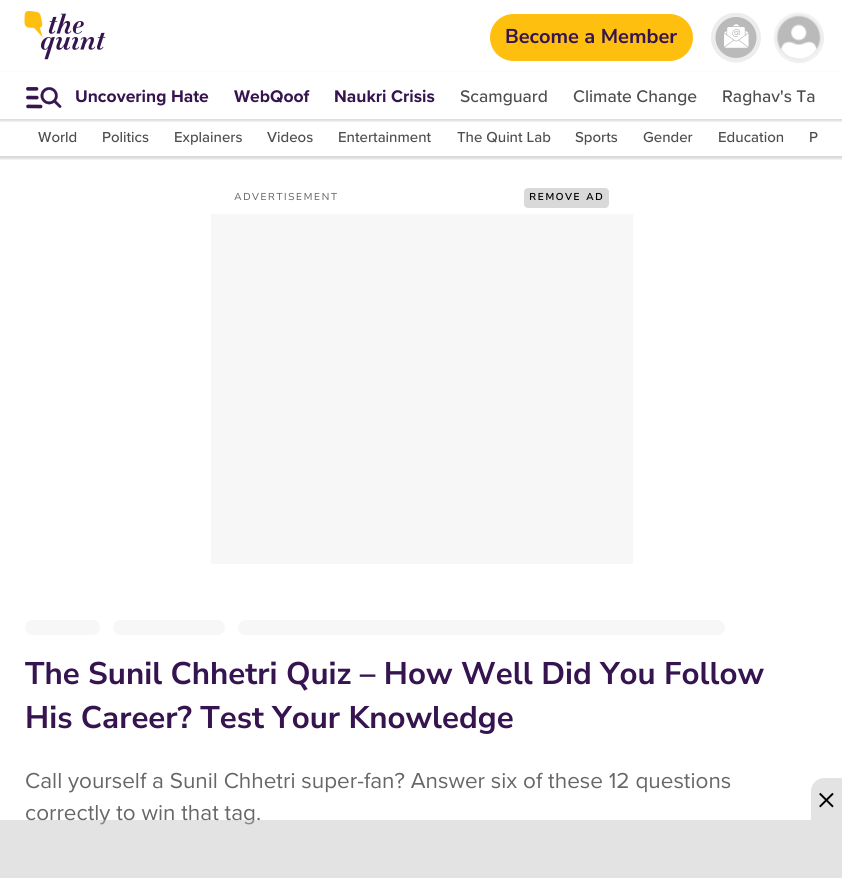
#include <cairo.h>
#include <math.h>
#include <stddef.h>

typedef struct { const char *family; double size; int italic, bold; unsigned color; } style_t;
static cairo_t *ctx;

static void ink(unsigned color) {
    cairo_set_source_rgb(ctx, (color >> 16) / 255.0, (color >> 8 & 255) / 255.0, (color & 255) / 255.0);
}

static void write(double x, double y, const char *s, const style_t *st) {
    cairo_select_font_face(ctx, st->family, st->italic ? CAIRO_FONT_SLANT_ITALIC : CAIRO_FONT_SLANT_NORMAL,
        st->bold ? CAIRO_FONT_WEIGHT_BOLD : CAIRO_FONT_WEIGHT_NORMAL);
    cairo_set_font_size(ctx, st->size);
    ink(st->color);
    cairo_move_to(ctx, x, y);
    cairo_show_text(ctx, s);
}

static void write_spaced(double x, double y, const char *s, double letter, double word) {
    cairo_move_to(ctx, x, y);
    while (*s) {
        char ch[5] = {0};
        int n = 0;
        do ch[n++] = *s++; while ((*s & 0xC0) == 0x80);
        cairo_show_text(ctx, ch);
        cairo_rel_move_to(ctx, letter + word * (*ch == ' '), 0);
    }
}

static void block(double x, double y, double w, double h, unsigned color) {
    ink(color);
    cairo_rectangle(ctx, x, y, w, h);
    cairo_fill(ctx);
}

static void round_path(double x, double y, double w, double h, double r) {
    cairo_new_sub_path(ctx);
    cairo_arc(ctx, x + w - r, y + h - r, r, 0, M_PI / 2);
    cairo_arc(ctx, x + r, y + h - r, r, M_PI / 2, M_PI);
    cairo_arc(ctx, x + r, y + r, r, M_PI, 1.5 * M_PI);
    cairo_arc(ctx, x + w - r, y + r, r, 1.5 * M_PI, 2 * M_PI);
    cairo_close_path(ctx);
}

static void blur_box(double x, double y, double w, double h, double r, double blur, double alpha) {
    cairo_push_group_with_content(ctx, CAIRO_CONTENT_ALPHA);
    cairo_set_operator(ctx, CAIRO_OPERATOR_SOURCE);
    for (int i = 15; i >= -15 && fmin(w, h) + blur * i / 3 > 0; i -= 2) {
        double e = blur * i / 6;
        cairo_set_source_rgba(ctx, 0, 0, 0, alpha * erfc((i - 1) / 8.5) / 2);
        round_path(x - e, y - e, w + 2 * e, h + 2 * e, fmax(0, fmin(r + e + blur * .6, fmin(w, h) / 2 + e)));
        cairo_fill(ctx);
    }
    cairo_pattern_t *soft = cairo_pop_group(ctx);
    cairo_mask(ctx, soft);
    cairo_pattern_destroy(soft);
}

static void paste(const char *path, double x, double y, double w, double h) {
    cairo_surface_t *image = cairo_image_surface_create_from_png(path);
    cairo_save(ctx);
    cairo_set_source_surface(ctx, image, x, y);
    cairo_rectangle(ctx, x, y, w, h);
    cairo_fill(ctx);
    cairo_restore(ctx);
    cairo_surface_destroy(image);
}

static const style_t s1 = {"Nunito Sans", 20, 0, 1, 0x35144f};
static const style_t s2 = {"Proxima Nova", 17.5, 0, 1, 0x35144f};
static const style_t s3 = {"Proxima Nova Medium", 17.5, 0, 0, 0x4d4d4d};
static const style_t s4 = {"Proxima Nova Medium", 15, 0, 0, 0x4d4d4d};
static const style_t s5 = {"Nunito Sans", 31.25, 0, 1, 0x35144f};
static const style_t s6 = {"Proxima Nova", 22.5, 0, 0, 0x676767};
static const style_t s7 = {"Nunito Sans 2", 31.25, 0, 0, 0x000000};

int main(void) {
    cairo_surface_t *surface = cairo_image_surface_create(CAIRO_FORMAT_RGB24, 842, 878);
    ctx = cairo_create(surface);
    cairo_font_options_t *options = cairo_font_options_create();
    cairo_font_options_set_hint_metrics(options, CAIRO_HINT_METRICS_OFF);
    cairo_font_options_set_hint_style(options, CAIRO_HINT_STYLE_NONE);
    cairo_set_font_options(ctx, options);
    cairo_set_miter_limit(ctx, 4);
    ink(0xffffff);
    cairo_paint(ctx);
    paste("pic1.png", 24, 11, 82, 49);
    ink(0xfebf0f);
    round_path(490, 14, 203, 47, 23.5);
    cairo_fill(ctx);
    write(505, 43, "Become a Member", &s1);
    paste("pic2.png", 711, 13, 50, 50);
    ink(0xefefef);
    cairo_arc(ctx, 799, 38, 24.5, 0, 2 * M_PI);
    cairo_fill_preserve(ctx);
    cairo_set_line_width(ctx, 1);
    cairo_stroke(ctx);
    paste("pic3.png", 773, 12, 48, 48);
    ink(0x000000);
    blur_box(-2, 73, 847, 48, 0, 1, 0.15);
    cairo_save(ctx);
    cairo_rectangle(ctx, 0, 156, 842, 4);
    cairo_clip(ctx);
    blur_box(-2, 116, 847, 43, 0, 1, 0.15);
    cairo_restore(ctx);
    block(0, 72, 842, 47, 0xffffff);
    paste("pic4.png", 26, 87, 36, 22);
    write(75, 102, "Uncovering Hate", &s2);
    write(234, 102, "WebQoof", &s2);
    write(334, 102, "Naukri Crisis", &s2);
    write(460, 102, "Scamguard", &s3);
    write(573, 102, "Climate Change", &s3);
    write(722, 102, "Raghav's Ta", &s3);
    write(38, 142, "World", &s4);
    write(102, 142, "Politics", &s4);
    write(174, 142, "Explainers", &s4);
    write(267, 142, "Videos", &s4);
    write(338, 142, "Entertainment", &s4);
    write(457, 142, "The Quint Lab", &s4);
    write(575, 142, "Sports", &s4);
    write(643, 142, "Gender", &s4);
    write(718, 142, "Education", &s4);
    write(809, 142, "P", &s4);
    cairo_select_font_face(ctx, "Nunito Sans", CAIRO_FONT_SLANT_NORMAL, CAIRO_FONT_WEIGHT_NORMAL);
    cairo_set_font_size(ctx, 10);
    ink(0x676767);
    write_spaced(234, 200, "ADVERTISEMENT", 1.25, 0);
    ink(0xd9d9d9);
    round_path(524, 188, 85, 20, 4);
    cairo_fill(ctx);
    cairo_select_font_face(ctx, "Nunito Sans SemiBold", CAIRO_FONT_SLANT_NORMAL, CAIRO_FONT_WEIGHT_NORMAL);
    ink(0x000000);
    write_spaced(529, 200, "REMOVE AD", 1.25, 1);
    block(211, 214, 422, 350, 0xf7f7f7);
    round_path(25, 620, 75, 15, 7.5);
    cairo_fill(ctx);
    round_path(113, 620, 112, 15, 7.5);
    cairo_fill(ctx);
    round_path(238, 620, 487, 15, 7.5);
    cairo_fill(ctx);
    write(25, 684, "The Sunil Chhetri Quiz – How Well Did You Follow", &s5);
    write(25, 728, "His Career? Test Your Knowledge", &s5);
    write(25, 788, "Call yourself a Sunil Chhetri super-fan? Answer six of these 12 questions", &s6);
    write(25, 820, "correctly to win that tag.", &s6);
    cairo_set_source_rgba(ctx, 0.729, 0.729, 0.729, 0.4);
    cairo_rectangle(ctx, 0, 820, 842, 58);
    cairo_fill(ctx);
    ink(0xe3e3e3);
    cairo_new_path(ctx);
    cairo_move_to(ctx, 824, 778);
    cairo_line_to(ctx, 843, 778);
    cairo_line_to(ctx, 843, 820);
    cairo_line_to(ctx, 811, 820);
    cairo_line_to(ctx, 811, 791);
    cairo_curve_to(ctx, 811, 784, 817, 778, 824, 778);
    cairo_close_path(ctx);
    cairo_fill(ctx);
    write(817, 809, "×", &s7);
    cairo_surface_write_to_png(surface, "screenshot.png");
    cairo_font_options_destroy(options);
    cairo_destroy(ctx);
    cairo_surface_destroy(surface);
    return 0;
}
